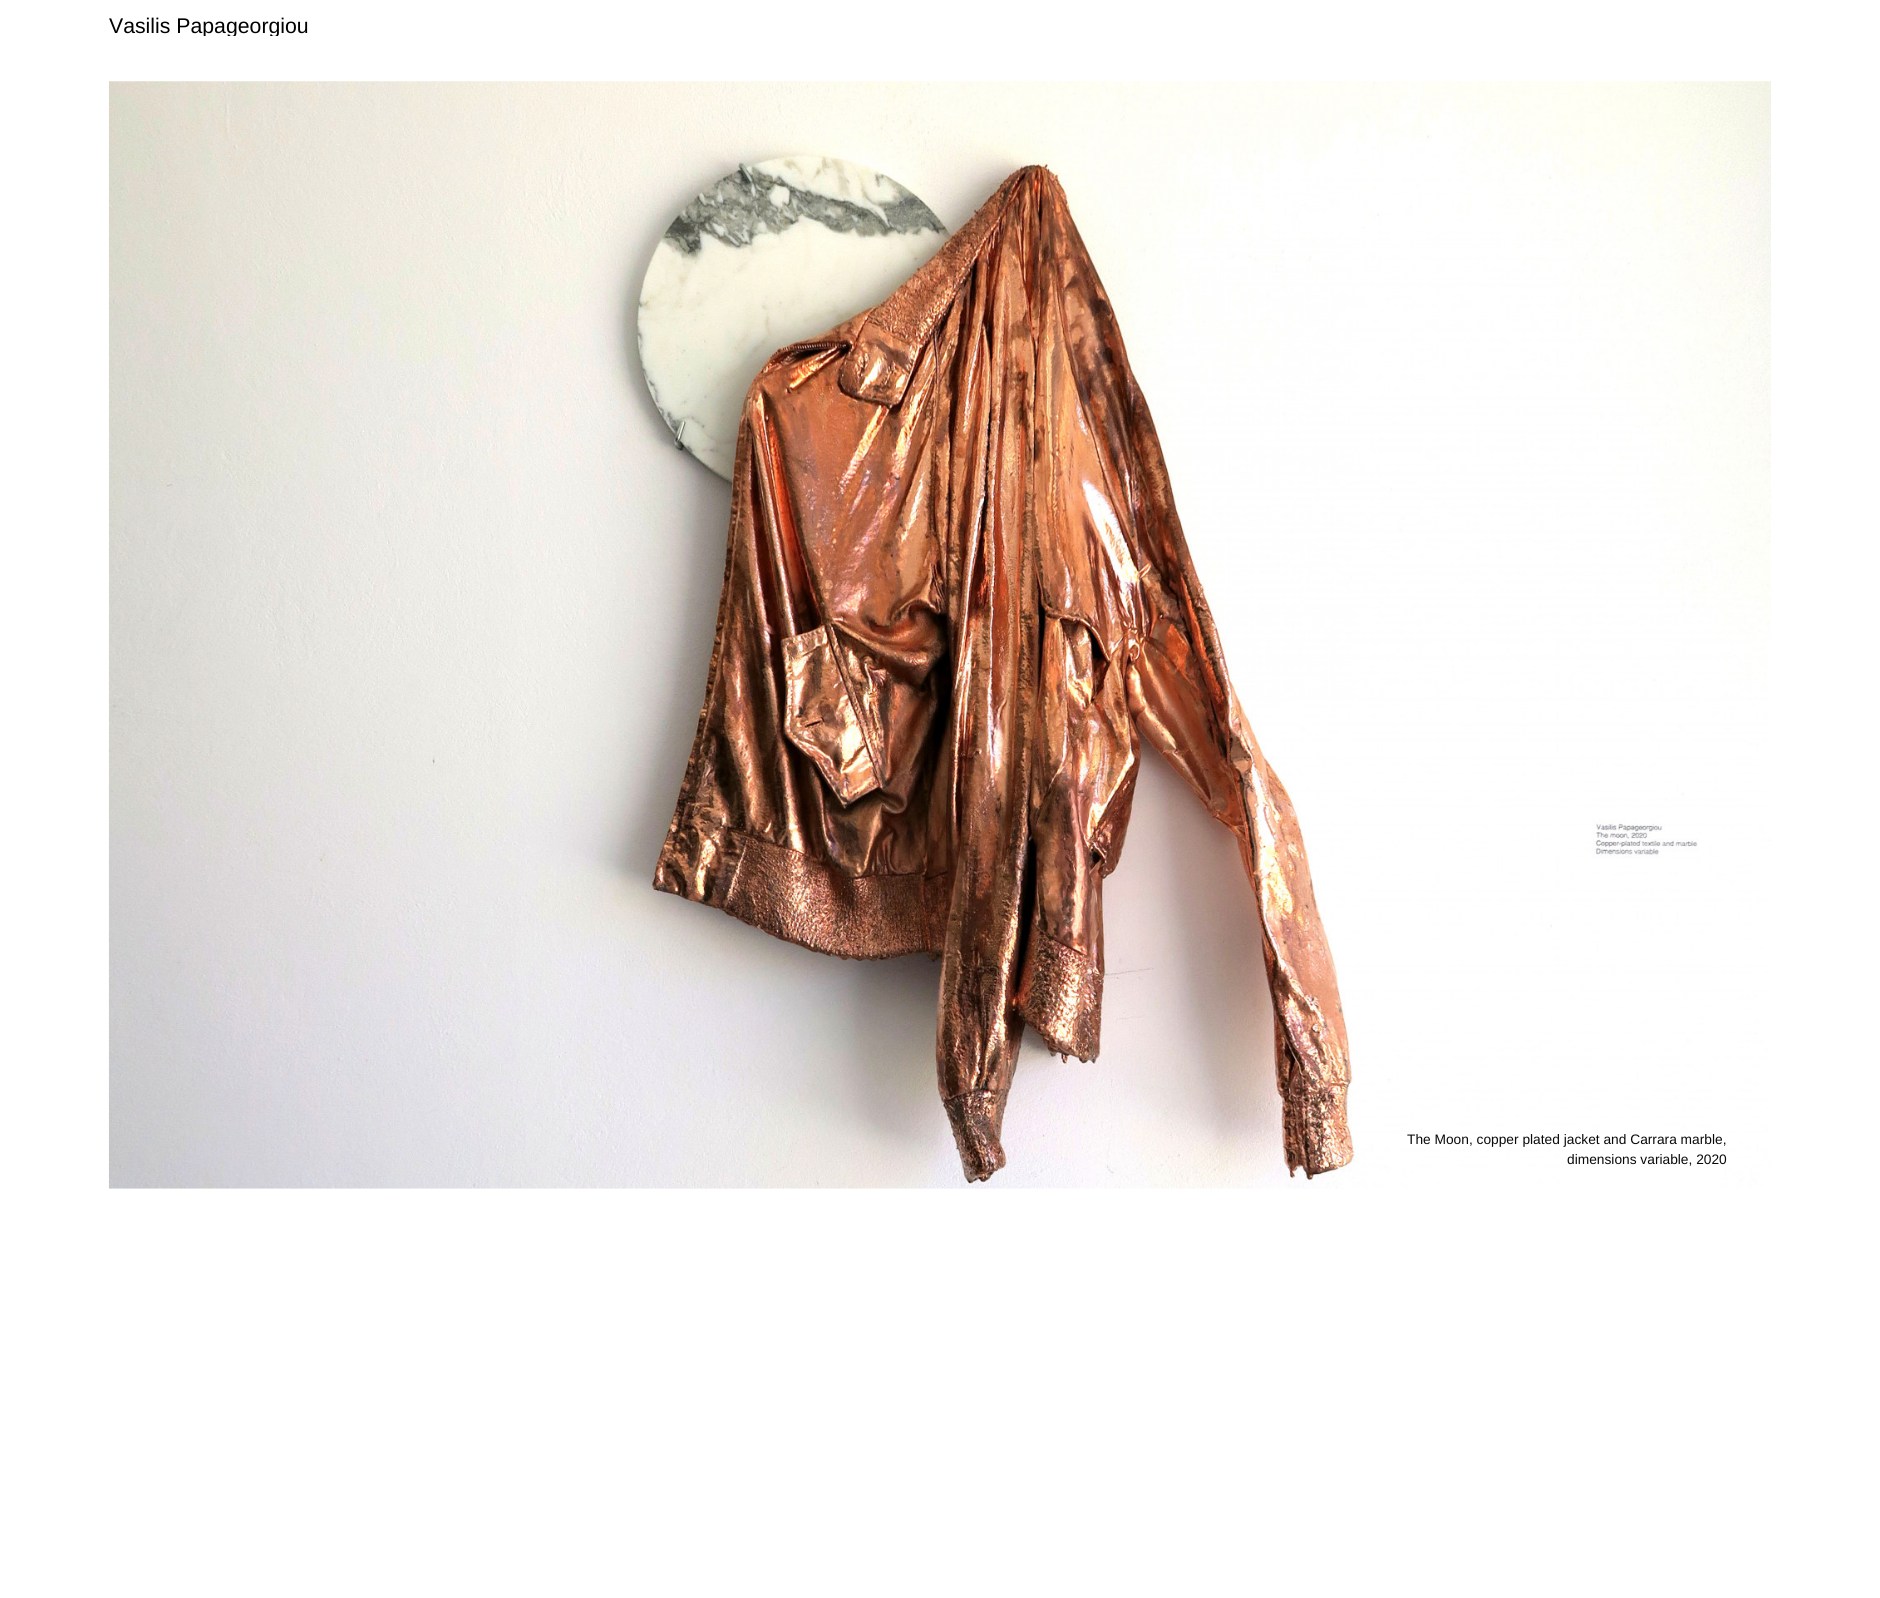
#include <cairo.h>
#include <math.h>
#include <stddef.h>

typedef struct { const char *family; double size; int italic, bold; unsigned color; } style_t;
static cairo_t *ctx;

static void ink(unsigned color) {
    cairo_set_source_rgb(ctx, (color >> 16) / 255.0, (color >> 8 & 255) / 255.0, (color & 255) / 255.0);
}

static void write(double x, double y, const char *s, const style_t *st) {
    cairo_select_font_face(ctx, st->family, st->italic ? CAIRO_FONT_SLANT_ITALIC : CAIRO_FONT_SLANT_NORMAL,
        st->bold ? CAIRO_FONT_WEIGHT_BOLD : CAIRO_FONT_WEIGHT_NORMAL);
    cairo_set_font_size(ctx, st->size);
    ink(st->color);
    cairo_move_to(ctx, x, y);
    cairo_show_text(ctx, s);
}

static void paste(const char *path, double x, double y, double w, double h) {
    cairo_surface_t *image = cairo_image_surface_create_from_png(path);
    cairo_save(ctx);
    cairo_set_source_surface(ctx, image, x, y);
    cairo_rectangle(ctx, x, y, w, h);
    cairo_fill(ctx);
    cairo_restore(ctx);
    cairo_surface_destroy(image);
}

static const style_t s1 = {"Liberation Sans", 21.25, 0, 0, 0x000000};
static const style_t s2 = {"Liberation Sans", 13.75, 0, 0, 0x0a0a0a};

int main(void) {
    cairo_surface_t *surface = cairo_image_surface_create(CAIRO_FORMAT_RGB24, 1880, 1598);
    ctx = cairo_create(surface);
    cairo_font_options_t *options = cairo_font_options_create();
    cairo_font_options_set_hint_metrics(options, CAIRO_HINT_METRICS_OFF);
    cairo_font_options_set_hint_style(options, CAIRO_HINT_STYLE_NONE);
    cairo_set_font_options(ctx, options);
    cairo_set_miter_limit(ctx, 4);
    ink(0xffffff);
    cairo_paint(ctx);
    cairo_save(ctx);
    cairo_rectangle(ctx, 94, 15, 846, 21);
    cairo_clip(ctx);
    write(109, 33, "Vasilis Papageorgiou", &s1);
    cairo_restore(ctx);
    paste("pic1.png", 108, 81, 1663, 1108);
    write(1407, 1144, "The Moon, copper plated jacket and Carrara marble,", &s2);
    write(1567, 1164, "dimensions variable, 2020", &s2);
    cairo_surface_write_to_png(surface, "screenshot.png");
    cairo_font_options_destroy(options);
    cairo_destroy(ctx);
    cairo_surface_destroy(surface);
    return 0;
}
